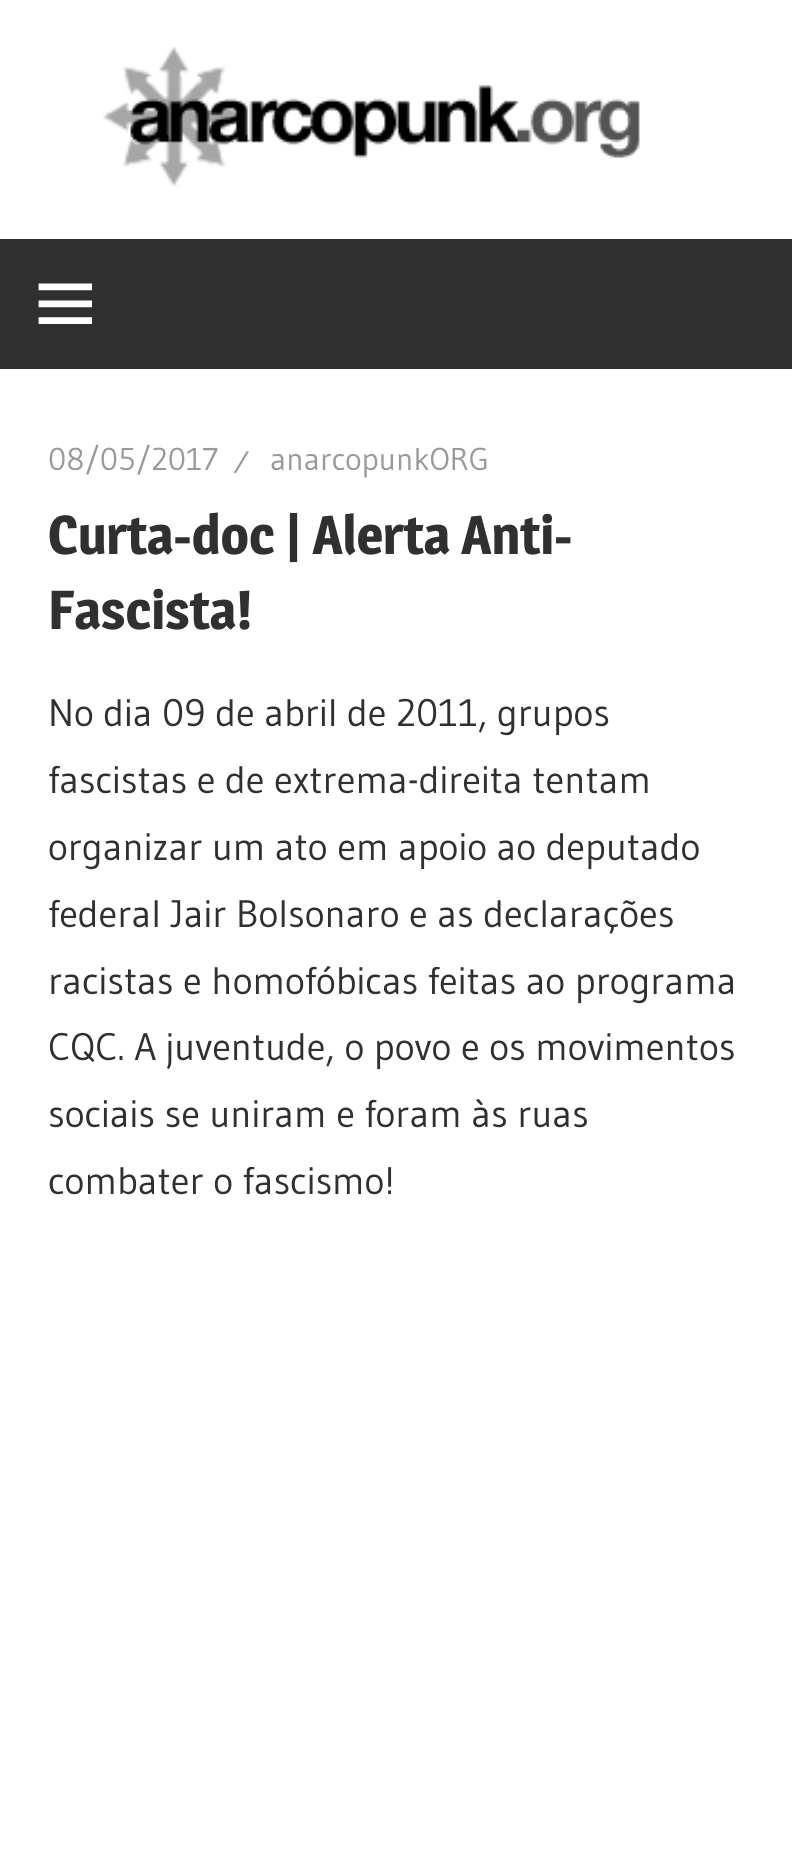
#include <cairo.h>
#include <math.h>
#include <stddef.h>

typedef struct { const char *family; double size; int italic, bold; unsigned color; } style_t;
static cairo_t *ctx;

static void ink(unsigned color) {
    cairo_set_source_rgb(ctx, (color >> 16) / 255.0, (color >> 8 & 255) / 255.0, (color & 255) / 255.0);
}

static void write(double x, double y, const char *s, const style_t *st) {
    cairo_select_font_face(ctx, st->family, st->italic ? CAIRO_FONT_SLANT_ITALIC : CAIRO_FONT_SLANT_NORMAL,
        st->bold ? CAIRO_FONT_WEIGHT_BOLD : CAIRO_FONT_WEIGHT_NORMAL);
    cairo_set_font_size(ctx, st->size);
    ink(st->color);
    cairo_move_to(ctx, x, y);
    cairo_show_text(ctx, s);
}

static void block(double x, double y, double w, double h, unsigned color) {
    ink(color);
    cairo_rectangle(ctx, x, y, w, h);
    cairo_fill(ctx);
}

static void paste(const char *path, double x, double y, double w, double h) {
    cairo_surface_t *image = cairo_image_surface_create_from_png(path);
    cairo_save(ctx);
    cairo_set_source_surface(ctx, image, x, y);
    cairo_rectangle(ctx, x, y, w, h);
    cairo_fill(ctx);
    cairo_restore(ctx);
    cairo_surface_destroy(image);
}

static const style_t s1 = {"Gudea", 31.5, 0, 0, 0x999999};
static const style_t s2 = {"Magra", 54, 0, 1, 0x303030};
static const style_t s3 = {"Gudea", 38.25, 0, 0, 0x303030};

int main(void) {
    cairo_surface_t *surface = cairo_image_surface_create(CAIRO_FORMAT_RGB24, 792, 1856);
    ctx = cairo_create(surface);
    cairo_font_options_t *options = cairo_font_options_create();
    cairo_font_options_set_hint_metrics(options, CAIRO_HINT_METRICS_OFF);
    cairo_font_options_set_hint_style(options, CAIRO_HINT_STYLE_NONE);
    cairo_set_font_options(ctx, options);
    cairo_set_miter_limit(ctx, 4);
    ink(0xffffff);
    cairo_paint(ctx);
    paste("pic1.png", 103, 47, 537, 140);
    block(0, 239, 792, 130, 0x303030);
    paste("pic2.png", 38, 283, 54, 41);
    write(48, 470, "08/05/2017", &s1);
    write(234, 473, "⁄", &s1);
    write(270, 470, "anarcopunkORG", &s1);
    write(48, 554, "Curta-doc | Alerta Anti-", &s2);
    write(48, 629, "Fascista!", &s2);
    write(48, 726, "No dia 09 de abril de 2011, grupos", &s3);
    write(48, 793, "fascistas e de extrema-direita tentam", &s3);
    write(48, 860, "organizar um ato em apoio ao deputado", &s3);
    write(48, 927, "federal Jair Bolsonaro e as declarações", &s3);
    write(48, 994, "racistas e homofóbicas feitas ao programa", &s3);
    write(48, 1060, "CQC. A juventude, o povo e os movimentos", &s3);
    write(48, 1127, "sociais se uniram e foram às ruas", &s3);
    write(48, 1194, "combater o fascismo!", &s3);
    cairo_surface_write_to_png(surface, "screenshot.png");
    cairo_font_options_destroy(options);
    cairo_destroy(ctx);
    cairo_surface_destroy(surface);
    return 0;
}
